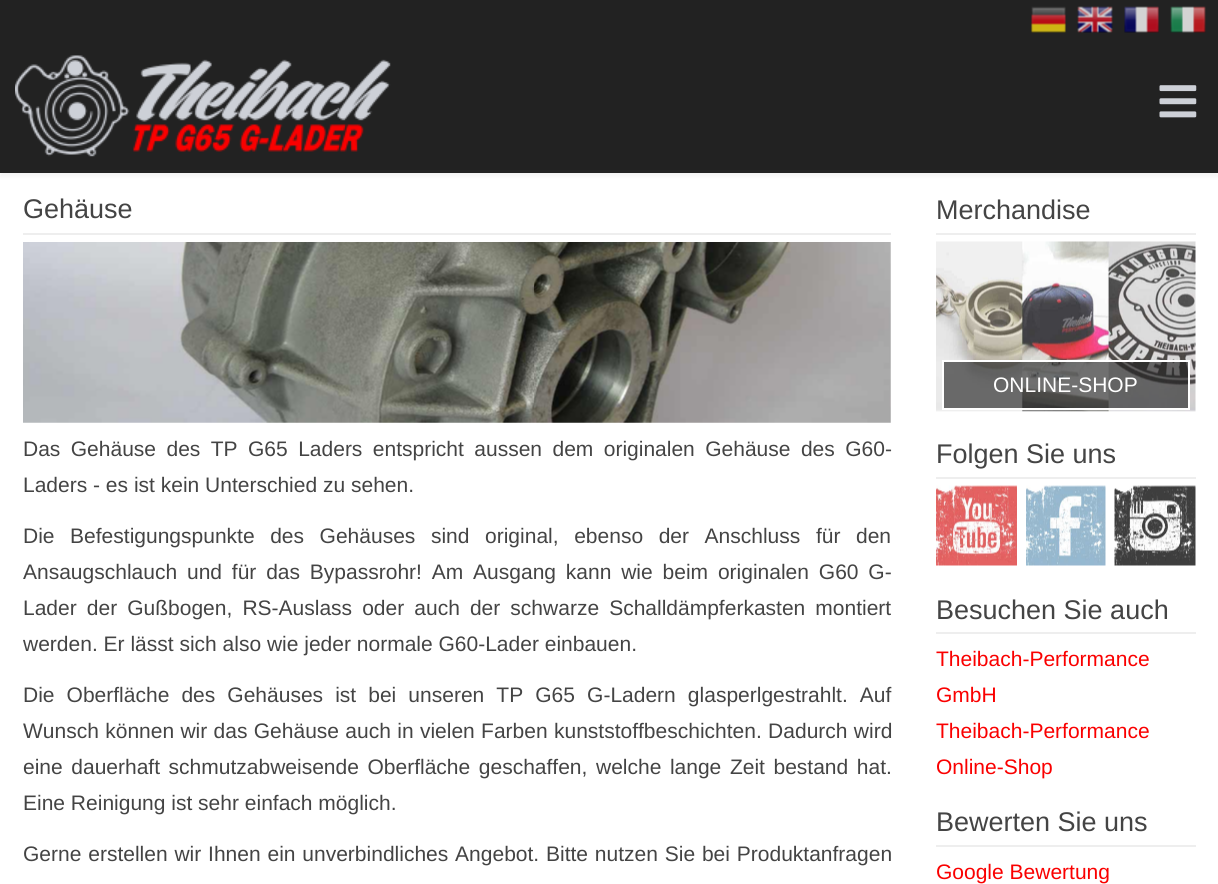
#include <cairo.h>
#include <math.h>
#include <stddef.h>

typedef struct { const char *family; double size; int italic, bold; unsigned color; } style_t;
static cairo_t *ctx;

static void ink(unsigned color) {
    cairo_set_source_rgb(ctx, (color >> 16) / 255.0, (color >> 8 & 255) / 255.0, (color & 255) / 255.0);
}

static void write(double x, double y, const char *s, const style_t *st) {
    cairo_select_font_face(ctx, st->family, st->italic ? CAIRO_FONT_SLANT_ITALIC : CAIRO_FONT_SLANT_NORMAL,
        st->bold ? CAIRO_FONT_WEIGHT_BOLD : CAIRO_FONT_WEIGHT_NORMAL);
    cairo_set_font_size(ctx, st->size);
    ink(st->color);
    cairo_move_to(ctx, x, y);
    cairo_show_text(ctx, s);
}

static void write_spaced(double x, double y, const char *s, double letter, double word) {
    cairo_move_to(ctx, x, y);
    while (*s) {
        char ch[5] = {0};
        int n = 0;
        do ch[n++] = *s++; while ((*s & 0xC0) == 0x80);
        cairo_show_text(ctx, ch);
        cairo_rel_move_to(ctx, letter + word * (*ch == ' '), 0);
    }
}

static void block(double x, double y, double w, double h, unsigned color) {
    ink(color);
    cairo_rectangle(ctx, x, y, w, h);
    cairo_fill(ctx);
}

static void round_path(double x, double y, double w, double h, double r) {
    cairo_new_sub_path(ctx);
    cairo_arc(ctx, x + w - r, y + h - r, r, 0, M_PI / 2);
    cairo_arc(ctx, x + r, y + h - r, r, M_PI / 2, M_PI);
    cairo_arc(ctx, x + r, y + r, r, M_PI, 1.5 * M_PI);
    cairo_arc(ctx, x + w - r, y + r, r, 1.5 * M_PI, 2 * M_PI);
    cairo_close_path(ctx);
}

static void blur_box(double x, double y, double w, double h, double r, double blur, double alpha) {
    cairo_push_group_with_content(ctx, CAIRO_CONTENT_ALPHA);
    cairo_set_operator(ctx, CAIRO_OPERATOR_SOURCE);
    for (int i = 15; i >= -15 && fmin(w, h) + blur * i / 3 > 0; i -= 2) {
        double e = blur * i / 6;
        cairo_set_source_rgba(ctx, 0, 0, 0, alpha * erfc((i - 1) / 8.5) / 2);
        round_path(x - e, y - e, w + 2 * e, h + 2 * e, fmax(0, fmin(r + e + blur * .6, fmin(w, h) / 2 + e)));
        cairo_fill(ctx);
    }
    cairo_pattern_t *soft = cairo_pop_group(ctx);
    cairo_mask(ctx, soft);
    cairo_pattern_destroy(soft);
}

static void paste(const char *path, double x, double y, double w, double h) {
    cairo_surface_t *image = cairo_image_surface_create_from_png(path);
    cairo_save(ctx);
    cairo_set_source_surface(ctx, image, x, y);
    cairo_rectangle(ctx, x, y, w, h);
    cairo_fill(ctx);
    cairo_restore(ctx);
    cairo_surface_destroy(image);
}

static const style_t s1 = {"Liberation Sans", 27, 0, 0, 0x444444};
static const style_t s2 = {"Liberation Sans", 21, 0, 0, 0x444444};
static const style_t s3 = {"Liberation Sans", 21, 0, 0, 0xffffff};
static const style_t s4 = {"Liberation Sans", 21, 0, 0, 0xfa0000};

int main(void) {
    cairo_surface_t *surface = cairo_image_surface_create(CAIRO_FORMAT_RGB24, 1218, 884);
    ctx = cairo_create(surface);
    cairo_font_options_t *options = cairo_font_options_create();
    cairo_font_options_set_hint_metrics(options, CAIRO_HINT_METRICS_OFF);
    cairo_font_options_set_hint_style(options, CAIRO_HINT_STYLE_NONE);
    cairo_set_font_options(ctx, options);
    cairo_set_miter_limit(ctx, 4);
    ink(0xffffff);
    cairo_paint(ctx);
    block(0, 0, 1218, 38, 0x222222);
    paste("pic1.png", 1031, 6, 35, 27);
    paste("pic2.png", 1077, 6, 36, 27);
    paste("pic3.png", 1124, 6, 35, 27);
    paste("pic4.png", 1170, 6, 36, 27);
    ink(0x000000);
    blur_box(0, 42, 1218, 135, 0, 2, 0.05);
    block(0, 38, 1218, 135, 0x222222);
    paste("pic5.png", 15, 55, 376, 102);
    paste("pic6.png", 1159, 85, 38, 33);
    block(23, 233, 868, 2, 0xeeeeee);
    write(23, 218, "Gehäuse", &s1);
    paste("pic7.png", 23, 242, 868, 181);
    cairo_set_font_size(ctx, 21);
    write_spaced(23, 456, "Das Gehäuse des TP G65 Laders entspricht aussen dem originalen Gehäuse des G60-", 0, 4.6);
    write(23, 492, "Laders - es ist kein Unterschied zu sehen.", &s2);
    write_spaced(23, 543, "Die Befestigungspunkte des Gehäuses sind original, ebenso der Anschluss für den", 0, 9.75);
    write_spaced(23, 579, "Ansaugschlauch und für das Bypassrohr! Am Ausgang kann wie beim originalen G60 G-", 0, 4);
    write_spaced(23, 615, "Lader der Gußbogen, RS-Auslass oder auch der schwarze Schalldämpferkasten montiert", 0, 4.25);
    write(23, 651, "werden. Er lässt sich also wie jeder normale G60-Lader einbauen.", &s2);
    write_spaced(23, 702, "Die Oberfläche des Gehäuses ist bei unseren TP G65 G-Ladern glasperlgestrahlt. Auf", 0, 6.25);
    write_spaced(23, 738, "Wunsch können wir das Gehäuse auch in vielen Farben kunststoffbeschichten. Dadurch wird", 0, 0.5);
    write_spaced(23, 774, "eine dauerhaft schmutzabweisende Oberfläche geschaffen, welche lange Zeit bestand hat.", 0, 2.75);
    write(23, 810, "Eine Reinigung ist sehr einfach möglich.", &s2);
    write_spaced(23, 861, "Gerne erstellen wir Ihnen ein unverbindliches Angebot. Bitte nutzen Sie bei Produktanfragen", 0, 1);
    block(936, 233, 260, 2, 0xeeeeee);
    write(936, 219, "Merchandise", &s1);
    paste("pic8.png", 936, 241, 260, 171);
    cairo_set_source_rgba(ctx, 0.133, 0.133, 0.133, 0.64);
    cairo_rectangle(ctx, 943, 361, 246, 48);
    cairo_fill_preserve(ctx);
    ink(0xffffff);
    cairo_stroke(ctx);
    write(993, 392, "ONLINE-SHOP", &s3);
    block(936, 477, 260, 2, 0xeeeeee);
    write(936, 463, "Folgen Sie uns", &s1);
    paste("pic9.png", 936, 485, 81, 81);
    paste("pic10.png", 1026, 485, 80, 81);
    paste("pic11.png", 1114, 485, 82, 81);
    block(936, 632, 260, 2, 0xeeeeee);
    write(936, 619, "Besuchen Sie auch", &s1);
    write(936, 666, "Theibach-Performance", &s4);
    write(936, 702, "GmbH", &s4);
    write(936, 738, "Theibach-Performance", &s4);
    write(936, 774, "Online-Shop", &s4);
    block(936, 845, 260, 2, 0xeeeeee);
    write(936, 831, "Bewerten Sie uns", &s1);
    write(936, 879, "Google Bewertung", &s4);
    cairo_surface_write_to_png(surface, "screenshot.png");
    cairo_font_options_destroy(options);
    cairo_destroy(ctx);
    cairo_surface_destroy(surface);
    return 0;
}
